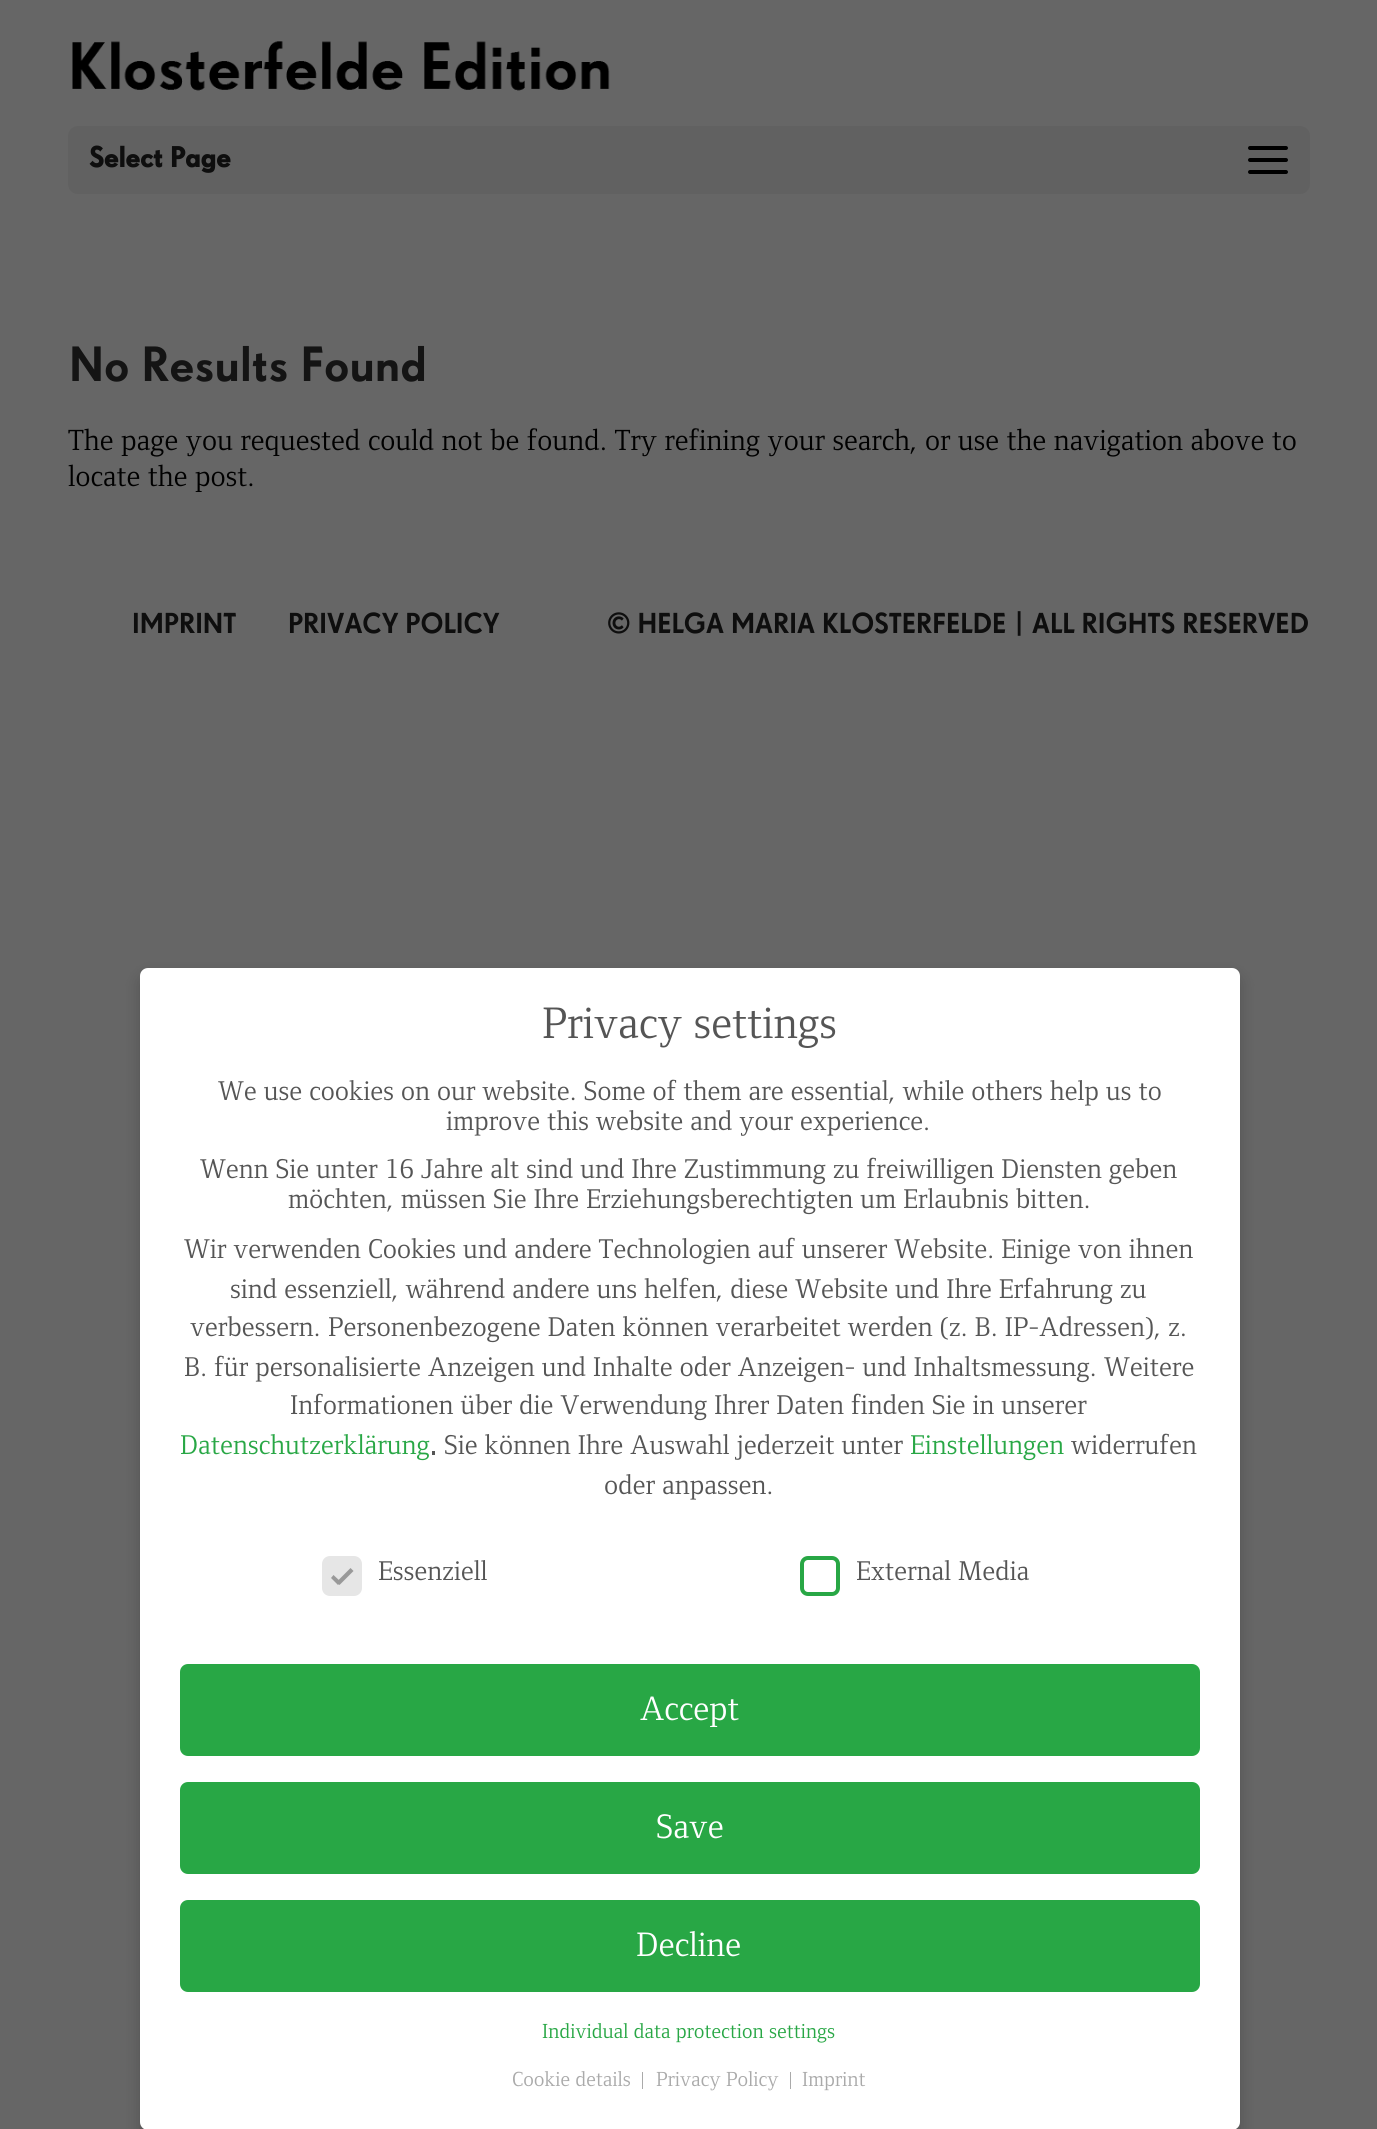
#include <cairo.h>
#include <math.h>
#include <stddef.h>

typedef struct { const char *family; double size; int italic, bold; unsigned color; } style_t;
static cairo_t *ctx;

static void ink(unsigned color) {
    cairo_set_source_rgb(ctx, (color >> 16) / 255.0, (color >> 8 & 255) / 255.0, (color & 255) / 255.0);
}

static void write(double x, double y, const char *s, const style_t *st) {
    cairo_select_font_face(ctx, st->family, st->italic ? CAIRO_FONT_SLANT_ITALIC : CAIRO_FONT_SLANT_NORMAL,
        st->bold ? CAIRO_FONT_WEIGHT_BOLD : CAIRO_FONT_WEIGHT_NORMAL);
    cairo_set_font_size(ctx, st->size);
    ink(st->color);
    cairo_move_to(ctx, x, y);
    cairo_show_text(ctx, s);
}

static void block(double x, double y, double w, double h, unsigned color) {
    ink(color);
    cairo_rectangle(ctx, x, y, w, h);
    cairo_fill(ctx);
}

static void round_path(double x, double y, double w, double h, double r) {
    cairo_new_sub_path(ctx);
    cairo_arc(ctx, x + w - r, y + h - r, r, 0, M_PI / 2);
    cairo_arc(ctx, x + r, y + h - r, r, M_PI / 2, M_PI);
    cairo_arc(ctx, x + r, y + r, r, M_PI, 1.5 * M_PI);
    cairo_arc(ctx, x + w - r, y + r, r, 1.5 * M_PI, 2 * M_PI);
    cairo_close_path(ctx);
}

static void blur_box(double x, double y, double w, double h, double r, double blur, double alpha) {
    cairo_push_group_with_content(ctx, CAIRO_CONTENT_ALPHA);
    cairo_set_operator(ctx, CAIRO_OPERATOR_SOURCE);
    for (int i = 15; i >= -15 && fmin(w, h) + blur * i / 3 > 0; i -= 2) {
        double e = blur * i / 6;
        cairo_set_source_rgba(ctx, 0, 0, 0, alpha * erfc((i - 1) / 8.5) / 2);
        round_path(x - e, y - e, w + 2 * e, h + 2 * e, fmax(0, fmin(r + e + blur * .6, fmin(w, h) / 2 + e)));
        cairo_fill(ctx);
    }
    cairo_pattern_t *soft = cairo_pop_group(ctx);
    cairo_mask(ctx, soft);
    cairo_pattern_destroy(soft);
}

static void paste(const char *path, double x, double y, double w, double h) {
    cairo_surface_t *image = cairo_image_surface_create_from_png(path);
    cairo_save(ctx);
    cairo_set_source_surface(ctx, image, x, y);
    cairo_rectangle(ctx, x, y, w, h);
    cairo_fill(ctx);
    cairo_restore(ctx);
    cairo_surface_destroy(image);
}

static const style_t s1 = {"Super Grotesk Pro", 28, 0, 1, 0x0e0e0e};
static const style_t s2 = {"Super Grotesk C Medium", 48, 0, 0, 0x141414};
static const style_t s3 = {"Super Grotesk Pro Medium", 28, 0, 0, 0x0e0e0e};

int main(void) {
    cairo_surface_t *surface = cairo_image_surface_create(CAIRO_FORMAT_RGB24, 1377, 2129);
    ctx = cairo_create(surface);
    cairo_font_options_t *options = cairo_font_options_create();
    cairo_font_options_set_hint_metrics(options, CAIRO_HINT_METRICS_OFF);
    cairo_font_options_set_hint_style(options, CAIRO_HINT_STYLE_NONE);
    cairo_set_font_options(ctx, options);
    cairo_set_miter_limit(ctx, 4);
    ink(0x666666);
    cairo_paint(ctx);
    paste("pic1.png", 72, 41, 538, 50);
    ink(0x616161);
    round_path(68, 126, 1242, 68, 10);
    cairo_fill(ctx);
    write(89, 167, "Select Page", &s1);
    paste("pic2.png", 1248, 146, 40, 28);
    write(69, 381, "No Results Found", &s2);
    paste("pic3.png", 68, 428, 1228, 29);
    paste("pic4.png", 68, 464, 185, 28);
    write(132, 633, "IMPRINT", &s3);
    write(288, 633, "PRIVACY POLICY", &s3);
    write(607, 633, "© HELGA MARIA KLOSTERFELDE | ALL RIGHTS RESERVED", &s3);
    ink(0x000000);
    blur_box(140, 976, 1100, 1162, 8, 8, 0.2);
    ink(0xffffff);
    round_path(140, 968, 1100, 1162, 8);
    cairo_fill(ctx);
    paste("pic5.png", 543, 1007, 293, 41);
    paste("pic6.png", 218, 1079, 943, 27);
    paste("pic7.png", 446, 1110, 482, 26);
    paste("pic8.png", 200, 1157, 977, 28);
    paste("pic9.png", 288, 1188, 801, 27);
    paste("pic10.png", 184, 1237, 1009, 28);
    paste("pic11.png", 231, 1277, 915, 28);
    paste("pic12.png", 190, 1316, 129, 21);
    paste("pic13.png", 329, 1316, 856, 27);
    paste("pic14.png", 185, 1355, 910, 28);
    paste("pic15.png", 1104, 1357, 90, 20);
    paste("pic16.png", 291, 1393, 796, 28);
    paste("pic17.png", 181, 1434, 249, 27);
    block(432, 1451, 3, 4, 0x555555);
    paste("pic18.png", 445, 1434, 458, 26);
    paste("pic19.png", 911, 1434, 153, 27);
    paste("pic20.png", 1071, 1433, 126, 22);
    paste("pic21.png", 605, 1474, 167, 26);
    ink(0xe6e6e6);
    round_path(324, 1558, 36, 36, 6);
    cairo_fill_preserve(ctx);
    cairo_set_line_width(ctx, 4);
    cairo_stroke(ctx);
    ink(0x999999);
    cairo_new_path(ctx);
    cairo_move_to(ctx, 350.5, 1568);
    cairo_line_to(ctx, 353.5, 1571);
    cairo_line_to(ctx, 339.5, 1585);
    cairo_line_to(ctx, 336.5, 1582);
    cairo_close_path(ctx);
    cairo_fill(ctx);
    cairo_new_path(ctx);
    cairo_move_to(ctx, 333.5, 1575);
    cairo_line_to(ctx, 341, 1582);
    cairo_line_to(ctx, 338, 1585);
    cairo_line_to(ctx, 331, 1578);
    cairo_close_path(ctx);
    cairo_fill(ctx);
    paste("pic22.png", 379, 1560, 108, 21);
    round_path(802, 1558, 36, 36, 6);
    ink(0x28a745);
    cairo_stroke(ctx);
    paste("pic23.png", 857, 1560, 172, 21);
    round_path(180, 1664, 1020, 92, 8);
    cairo_fill(ctx);
    paste("pic24.png", 640, 1696, 99, 31);
    round_path(180, 1782, 1020, 92, 8);
    cairo_fill(ctx);
    paste("pic25.png", 657, 1814, 66, 25);
    round_path(180, 1900, 1020, 92, 8);
    cairo_fill(ctx);
    paste("pic26.png", 637, 1931, 103, 26);
    paste("pic27.png", 542, 2023, 293, 20);
    paste("pic28.png", 513, 2071, 117, 16);
    block(642, 2072, 1, 17, 0xaaaaaa);
    paste("pic29.png", 656, 2071, 123, 20);
    block(790, 2072, 1, 17, 0xaaaaaa);
    paste("pic30.png", 802, 2071, 64, 20);
    cairo_surface_write_to_png(surface, "screenshot.png");
    cairo_font_options_destroy(options);
    cairo_destroy(ctx);
    cairo_surface_destroy(surface);
    return 0;
}
